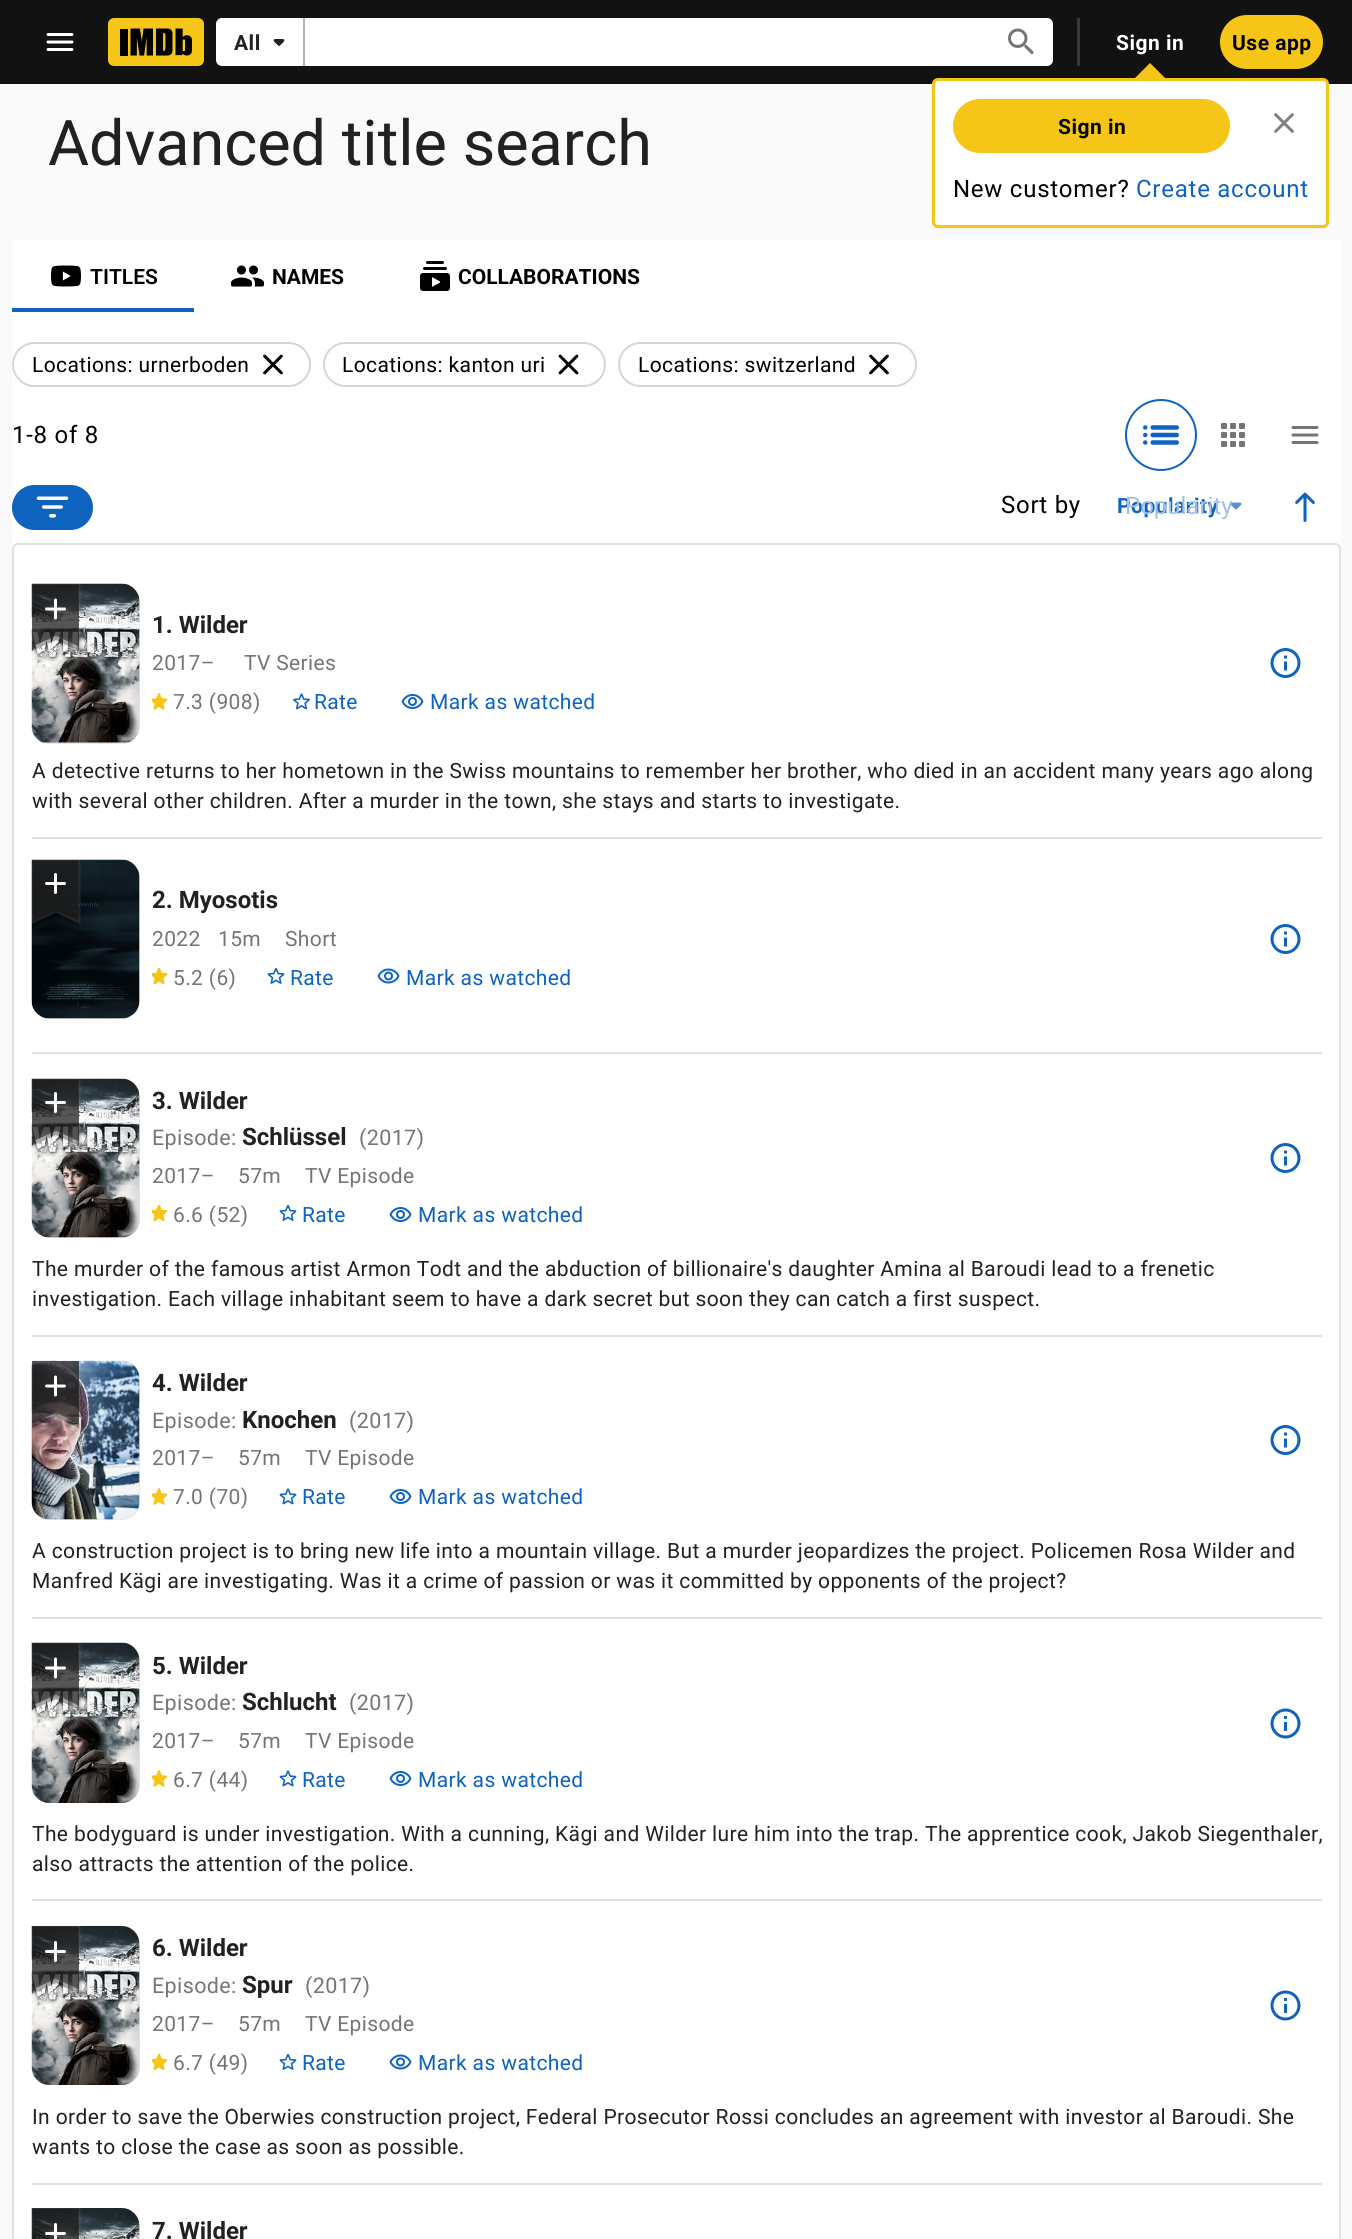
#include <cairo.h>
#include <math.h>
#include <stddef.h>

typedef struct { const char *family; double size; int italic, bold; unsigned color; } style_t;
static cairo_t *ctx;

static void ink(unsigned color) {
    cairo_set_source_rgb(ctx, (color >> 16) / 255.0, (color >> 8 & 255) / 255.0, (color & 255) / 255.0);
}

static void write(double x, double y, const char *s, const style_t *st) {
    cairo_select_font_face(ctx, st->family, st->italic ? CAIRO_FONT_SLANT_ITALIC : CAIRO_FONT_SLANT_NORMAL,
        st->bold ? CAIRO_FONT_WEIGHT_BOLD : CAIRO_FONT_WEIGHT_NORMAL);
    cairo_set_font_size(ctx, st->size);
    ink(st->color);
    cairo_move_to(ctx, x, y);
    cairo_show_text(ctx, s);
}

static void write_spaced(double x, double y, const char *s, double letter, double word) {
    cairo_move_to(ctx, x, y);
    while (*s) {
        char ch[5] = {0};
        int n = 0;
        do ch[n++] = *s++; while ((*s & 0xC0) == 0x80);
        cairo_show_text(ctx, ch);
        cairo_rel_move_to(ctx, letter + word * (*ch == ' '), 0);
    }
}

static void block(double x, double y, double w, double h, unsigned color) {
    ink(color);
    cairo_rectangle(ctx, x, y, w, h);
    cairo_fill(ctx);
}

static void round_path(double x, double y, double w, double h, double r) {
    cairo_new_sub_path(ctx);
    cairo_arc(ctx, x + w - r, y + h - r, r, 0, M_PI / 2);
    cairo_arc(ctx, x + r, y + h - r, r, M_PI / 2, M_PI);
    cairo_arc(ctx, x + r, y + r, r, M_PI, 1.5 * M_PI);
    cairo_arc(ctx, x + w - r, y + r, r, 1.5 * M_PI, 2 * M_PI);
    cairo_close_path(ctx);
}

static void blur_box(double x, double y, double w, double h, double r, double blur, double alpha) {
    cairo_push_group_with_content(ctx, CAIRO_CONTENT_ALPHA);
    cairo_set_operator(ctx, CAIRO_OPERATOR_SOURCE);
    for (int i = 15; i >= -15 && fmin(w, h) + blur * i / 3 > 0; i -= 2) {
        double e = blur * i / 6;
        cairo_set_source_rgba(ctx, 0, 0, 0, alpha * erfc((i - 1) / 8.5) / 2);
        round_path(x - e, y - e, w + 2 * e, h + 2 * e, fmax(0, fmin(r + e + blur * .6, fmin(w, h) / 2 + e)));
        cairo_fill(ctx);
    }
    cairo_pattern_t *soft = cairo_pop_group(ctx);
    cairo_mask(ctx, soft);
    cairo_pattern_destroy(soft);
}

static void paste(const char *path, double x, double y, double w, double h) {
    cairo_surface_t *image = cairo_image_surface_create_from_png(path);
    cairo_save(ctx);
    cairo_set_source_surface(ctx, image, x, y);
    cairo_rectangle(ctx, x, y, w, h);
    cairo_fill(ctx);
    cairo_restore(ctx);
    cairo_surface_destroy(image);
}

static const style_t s1 = {"Roboto", 63, 0, 0, 0x212121};
static const style_t s2 = {"Roboto SemiBold", 21, 0, 0, 0x000000};
static const style_t s3 = {"Roboto", 21, 0, 1, 0x000000};
static const style_t s4 = {"Roboto", 24, 0, 0, 0xa0c1e5};
static const style_t s5 = {"Roboto", 24, 0, 1, 0x212121};

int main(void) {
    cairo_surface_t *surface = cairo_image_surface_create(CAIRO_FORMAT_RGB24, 1352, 2239);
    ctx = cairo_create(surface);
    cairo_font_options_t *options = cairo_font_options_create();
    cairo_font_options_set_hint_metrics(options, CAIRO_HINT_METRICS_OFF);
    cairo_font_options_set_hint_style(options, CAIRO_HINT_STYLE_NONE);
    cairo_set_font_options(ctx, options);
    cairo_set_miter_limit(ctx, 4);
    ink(0xfafafa);
    cairo_paint(ctx);
    block(0, 0, 1352, 84, 0x121212);
    paste("pic1.png", 46, 33, 28, 18);
    paste("pic2.png", 108, 18, 96, 48);
    ink(0xffffff);
    round_path(216, 18, 837, 48, 6);
    cairo_fill(ctx);
    block(303, 18, 2, 48, 0xb3b3b3);
    cairo_select_font_face(ctx, "Roboto", CAIRO_FONT_SLANT_NORMAL, CAIRO_FONT_WEIGHT_BOLD);
    cairo_set_font_size(ctx, 21);
    ink(0x212121);
    write_spaced(234, 50, "All", 0.5, 0);
    paste("pic3.png", 273, 39, 12, 7);
    paste("pic4.png", 1008, 28, 26, 26);
    block(1077, 18, 3, 48, 0x383838);
    ink(0xffffff);
    write_spaced(1116, 50, "Sign in", 0.5, 0);
    ink(0x000000);
    blur_box(932, 78, 397, 150, 6, 1, 0.12);
    ink(0xffffff);
    round_path(933.5, 79.5, 394, 147, 4.5);
    cairo_fill_preserve(ctx);
    ink(0xf5c518);
    cairo_set_line_width(ctx, 3);
    cairo_stroke(ctx);
    cairo_new_path(ctx);
    cairo_move_to(ctx, 1133, 81);
    cairo_line_to(ctx, 1168, 81);
    cairo_line_to(ctx, 1150, 63);
    cairo_line_to(ctx, 1133, 80);
    cairo_close_path(ctx);
    cairo_fill(ctx);
    round_path(953, 99, 277, 54, 27);
    cairo_fill(ctx);
    ink(0x000000);
    write_spaced(1058, 134, "Sign in", 0.5, 0);
    paste("pic5.png", 1274, 113, 20, 20);
    cairo_select_font_face(ctx, "Roboto", CAIRO_FONT_SLANT_NORMAL, CAIRO_FONT_WEIGHT_NORMAL);
    cairo_set_font_size(ctx, 24);
    write_spaced(953, 197, "New customer?", 0.75, 0);
    ink(0x0e63be);
    write_spaced(1136, 197, "Create account", 0.75, 0);
    ink(0xf5c518);
    round_path(1220, 15, 103, 54, 27);
    cairo_fill(ctx);
    cairo_select_font_face(ctx, "Roboto", CAIRO_FONT_SLANT_NORMAL, CAIRO_FONT_WEIGHT_BOLD);
    cairo_set_font_size(ctx, 21);
    ink(0x000000);
    write_spaced(1232, 50, "Use app", 0.5, 0);
    write(48, 165, "Advanced title search", &s1);
    block(12, 240, 1329, 1999, 0xffffff);
    paste("pic6.png", 51, 265, 30, 22);
    write(90, 284, "TITLES", &s2);
    paste("pic7.png", 231, 265, 33, 22);
    write(272, 284, "NAMES", &s3);
    paste("pic8.png", 420, 261, 30, 30);
    write(458, 284, "COLLABORATIONS", &s3);
    block(12, 308, 182, 4, 0x0e63be);
    round_path(13, 343, 297, 43, 21.5);
    ink(0xd6d6d6);
    cairo_set_line_width(ctx, 2);
    cairo_stroke(ctx);
    cairo_select_font_face(ctx, "Roboto", CAIRO_FONT_SLANT_NORMAL, CAIRO_FONT_WEIGHT_NORMAL);
    ink(0x000000);
    write_spaced(32, 372, "Locations: urnerboden", 0.38, 0);
    paste("pic9.png", 263, 354, 20, 21);
    round_path(324, 343, 281, 43, 21.5);
    ink(0xd6d6d6);
    cairo_stroke(ctx);
    ink(0x000000);
    write_spaced(342, 372, "Locations: kanton uri", 0.38, 0);
    paste("pic10.png", 558, 354, 21, 21);
    round_path(619, 343, 297, 43, 21.5);
    ink(0xd6d6d6);
    cairo_stroke(ctx);
    ink(0x000000);
    write_spaced(638, 372, "Locations: switzerland", 0.38, 0);
    paste("pic9.png", 869, 354, 20, 21);
    cairo_set_font_size(ctx, 24);
    write_spaced(12, 443, "1-8 of 8", 0.75, 0);
    cairo_new_path(ctx);
    cairo_arc(ctx, 1161, 435, 35, 0, 2 * M_PI);
    ink(0x0e63be);
    cairo_stroke(ctx);
    paste("pic11.png", 1143, 425, 36, 20);
    paste("pic12.png", 1221, 423, 24, 24);
    paste("pic13.png", 1291, 426, 28, 18);
    round_path(12, 485, 81, 45, 22.5);
    cairo_fill(ctx);
    paste("pic14.png", 36, 496, 33, 22);
    ink(0x000000);
    write_spaced(1001, 513, "Sort by", 0.75, 0);
    cairo_select_font_face(ctx, "Roboto", CAIRO_FONT_SLANT_NORMAL, CAIRO_FONT_WEIGHT_BOLD);
    cairo_set_font_size(ctx, 21);
    ink(0x0e63be);
    write_spaced(1117, 513, "Popularity", 0.5, 0);
    paste("pic15.png", 1230, 502, 12, 8);
    write(1125, 514, "Popularity", &s4);
    paste("pic16.png", 1295, 492, 20, 30);
    round_path(13, 544, 1327, 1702, 5);
    ink(0xe0e0e0);
    cairo_stroke(ctx);
    ink(0xe6e6e6);
    cairo_new_path(ctx);
    cairo_move_to(ctx, 32, 584);
    cairo_line_to(ctx, 122, 584);
    cairo_curve_to(ctx, 132, 584, 140, 592, 140, 602);
    cairo_line_to(ctx, 140, 726);
    cairo_curve_to(ctx, 140, 736, 132, 744, 122, 744);
    cairo_line_to(ctx, 50, 744);
    cairo_curve_to(ctx, 40, 744, 32, 736, 32, 726);
    cairo_close_path(ctx);
    cairo_fill(ctx);
    paste("pic17.png", 31, 583, 109, 160);
    cairo_set_source_rgba(ctx, 0.122, 0.122, 0.122, 0.75);
    cairo_new_path(ctx);
    cairo_move_to(ctx, 79, 584);
    cairo_line_to(ctx, 32, 584);
    cairo_line_to(ctx, 32, 647);
    cairo_line_to(ctx, 56, 636);
    cairo_line_to(ctx, 79, 647);
    cairo_close_path(ctx);
    cairo_fill(ctx);
    cairo_save(ctx);
    cairo_new_path(ctx);
    cairo_move_to(ctx, 32, 584);
    cairo_line_to(ctx, 122, 584);
    cairo_curve_to(ctx, 132, 584, 140, 592, 140, 602);
    cairo_line_to(ctx, 140, 726);
    cairo_curve_to(ctx, 140, 736, 132, 744, 122, 744);
    cairo_line_to(ctx, 50, 744);
    cairo_curve_to(ctx, 40, 744, 32, 736, 32, 726);
    cairo_close_path(ctx);
    cairo_clip(ctx);
    cairo_new_path(ctx);
    cairo_move_to(ctx, 79.5, 583.5);
    cairo_line_to(ctx, 31.5, 583.5);
    cairo_line_to(ctx, 31.5, 647.5);
    cairo_line_to(ctx, 56, 636);
    cairo_line_to(ctx, 79.5, 647);
    cairo_close_path(ctx);
    cairo_set_source_rgba(ctx, 1, 1, 1, 0.08);
    cairo_stroke(ctx);
    cairo_restore(ctx);
    paste("pic18.png", 45, 598, 21, 22);
    cairo_set_source_rgba(ctx, 0, 0, 0, 0.32);
    cairo_new_path(ctx);
    cairo_move_to(ctx, 79, 647);
    cairo_line_to(ctx, 79, 651);
    cairo_line_to(ctx, 56, 640);
    cairo_line_to(ctx, 32, 651);
    cairo_line_to(ctx, 32, 647);
    cairo_line_to(ctx, 56, 636);
    cairo_close_path(ctx);
    cairo_fill(ctx);
    write(152, 633, "1. Wilder", &s5);
    cairo_select_font_face(ctx, "Roboto", CAIRO_FONT_SLANT_NORMAL, CAIRO_FONT_WEIGHT_NORMAL);
    cairo_set_font_size(ctx, 21);
    ink(0x757575);
    write_spaced(152, 670, "2017–", 0.38, 0);
    write_spaced(244, 670, "TV Series", 0.38, 0);
    paste("pic19.png", 152, 693, 16, 17);
    write_spaced(173, 709, "7.3 (908)", 0.38, 0);
    paste("pic20.png", 293, 693, 17, 17);
    ink(0x0e63be);
    write_spaced(314, 709, "Rate", 0.38, 0);
    paste("pic21.png", 401, 694, 23, 15);
    write_spaced(430, 709, "Mark as watched", 0.38, 0);
    paste("pic22.png", 1270, 648, 31, 30);
    ink(0x212121);
    write_spaced(32, 778, "A detective returns to her hometown in the Swiss mountains to remember her brother, who died in an accident many years ago along", 0.38, 0);
    write_spaced(32, 808, "with several other children. After a murder in the town, she stays and starts to investigate.", 0.38, 0);
    block(32, 837, 1290, 2, 0xe0e0e0);
    ink(0xe6e6e6);
    cairo_new_path(ctx);
    cairo_move_to(ctx, 32, 860);
    cairo_line_to(ctx, 122, 860);
    cairo_curve_to(ctx, 132, 860, 140, 868, 140, 878);
    cairo_line_to(ctx, 140, 1001);
    cairo_curve_to(ctx, 140, 1011, 132, 1019, 122, 1019);
    cairo_line_to(ctx, 50, 1019);
    cairo_curve_to(ctx, 40, 1019, 32, 1011, 32, 1001);
    cairo_close_path(ctx);
    cairo_fill(ctx);
    paste("pic23.png", 31, 859, 109, 160);
    cairo_set_source_rgba(ctx, 0.122, 0.122, 0.122, 0.75);
    cairo_new_path(ctx);
    cairo_move_to(ctx, 79, 860);
    cairo_line_to(ctx, 32, 860);
    cairo_line_to(ctx, 32, 923);
    cairo_line_to(ctx, 56, 912);
    cairo_line_to(ctx, 79, 923);
    cairo_close_path(ctx);
    cairo_fill(ctx);
    cairo_save(ctx);
    cairo_new_path(ctx);
    cairo_move_to(ctx, 32, 860);
    cairo_line_to(ctx, 122, 860);
    cairo_curve_to(ctx, 132, 860, 140, 868, 140, 878);
    cairo_line_to(ctx, 140, 1001);
    cairo_curve_to(ctx, 140, 1011, 132, 1019, 122, 1019);
    cairo_line_to(ctx, 50, 1019);
    cairo_curve_to(ctx, 40, 1019, 32, 1011, 32, 1001);
    cairo_close_path(ctx);
    cairo_clip(ctx);
    cairo_new_path(ctx);
    cairo_move_to(ctx, 79.5, 859.5);
    cairo_line_to(ctx, 31.5, 859.5);
    cairo_line_to(ctx, 31.5, 923.5);
    cairo_line_to(ctx, 56, 912);
    cairo_line_to(ctx, 79.5, 923);
    cairo_close_path(ctx);
    cairo_set_source_rgba(ctx, 1, 1, 1, 0.08);
    cairo_stroke(ctx);
    cairo_restore(ctx);
    paste("pic24.png", 45, 873, 21, 21);
    cairo_set_source_rgba(ctx, 0, 0, 0, 0.32);
    cairo_new_path(ctx);
    cairo_move_to(ctx, 79, 923);
    cairo_line_to(ctx, 79, 927);
    cairo_line_to(ctx, 56, 916);
    cairo_line_to(ctx, 32, 927);
    cairo_line_to(ctx, 32, 923);
    cairo_line_to(ctx, 56, 912);
    cairo_close_path(ctx);
    cairo_fill(ctx);
    write(152, 908, "2. Myosotis", &s5);
    cairo_select_font_face(ctx, "Roboto", CAIRO_FONT_SLANT_NORMAL, CAIRO_FONT_WEIGHT_NORMAL);
    cairo_set_font_size(ctx, 21);
    ink(0x757575);
    write_spaced(152, 946, "2022", 0.38, 0);
    write_spaced(218, 946, "15m", 0.38, 0);
    write_spaced(285, 946, "Short", 0.38, 0);
    paste("pic25.png", 152, 968, 16, 16);
    write_spaced(173, 985, "5.2 (6)", 0.38, 0);
    paste("pic26.png", 267, 968, 18, 16);
    ink(0x0e63be);
    write_spaced(290, 985, "Rate", 0.38, 0);
    paste("pic27.png", 377, 968, 23, 16);
    write_spaced(406, 985, "Mark as watched", 0.38, 0);
    paste("pic22.png", 1270, 924, 31, 30);
    block(32, 1052, 1290, 2, 0xe0e0e0);
    ink(0xe6e6e6);
    cairo_new_path(ctx);
    cairo_move_to(ctx, 32, 1079);
    cairo_line_to(ctx, 122, 1079);
    cairo_curve_to(ctx, 132, 1079, 140, 1087, 140, 1097);
    cairo_line_to(ctx, 140, 1220);
    cairo_curve_to(ctx, 140, 1230, 132, 1238, 122, 1238);
    cairo_line_to(ctx, 50, 1238);
    cairo_curve_to(ctx, 40, 1238, 32, 1230, 32, 1220);
    cairo_close_path(ctx);
    cairo_fill(ctx);
    paste("pic28.png", 31, 1078, 109, 160);
    cairo_set_source_rgba(ctx, 0.122, 0.122, 0.122, 0.75);
    cairo_new_path(ctx);
    cairo_move_to(ctx, 32, 1079);
    cairo_line_to(ctx, 32, 1142);
    cairo_line_to(ctx, 56, 1131);
    cairo_line_to(ctx, 79, 1142);
    cairo_line_to(ctx, 79, 1079);
    cairo_close_path(ctx);
    cairo_fill(ctx);
    cairo_save(ctx);
    cairo_new_path(ctx);
    cairo_move_to(ctx, 32, 1079);
    cairo_line_to(ctx, 122, 1079);
    cairo_curve_to(ctx, 132, 1079, 140, 1087, 140, 1097);
    cairo_line_to(ctx, 140, 1220);
    cairo_curve_to(ctx, 140, 1230, 132, 1238, 122, 1238);
    cairo_line_to(ctx, 50, 1238);
    cairo_curve_to(ctx, 40, 1238, 32, 1230, 32, 1220);
    cairo_close_path(ctx);
    cairo_clip(ctx);
    cairo_new_path(ctx);
    cairo_move_to(ctx, 79.5, 1078.5);
    cairo_line_to(ctx, 31.5, 1078.5);
    cairo_line_to(ctx, 31.5, 1142.5);
    cairo_line_to(ctx, 56, 1131);
    cairo_line_to(ctx, 79.5, 1142);
    cairo_close_path(ctx);
    cairo_set_source_rgba(ctx, 1, 1, 1, 0.08);
    cairo_stroke(ctx);
    cairo_restore(ctx);
    paste("pic29.png", 45, 1092, 21, 21);
    cairo_set_source_rgba(ctx, 0, 0, 0, 0.32);
    cairo_new_path(ctx);
    cairo_move_to(ctx, 79, 1142);
    cairo_line_to(ctx, 79, 1146);
    cairo_line_to(ctx, 56, 1135);
    cairo_line_to(ctx, 32, 1146);
    cairo_line_to(ctx, 32, 1142);
    cairo_line_to(ctx, 56, 1131);
    cairo_close_path(ctx);
    cairo_fill(ctx);
    write(152, 1109, "3. Wilder", &s5);
    cairo_select_font_face(ctx, "Roboto", CAIRO_FONT_SLANT_NORMAL, CAIRO_FONT_WEIGHT_NORMAL);
    cairo_set_font_size(ctx, 21.5);
    ink(0x757575);
    write_spaced(152, 1145, "Episode:", 0.38, 0);
    write(242, 1145, "Schlüssel", &s5);
    cairo_select_font_face(ctx, "Roboto", CAIRO_FONT_SLANT_NORMAL, CAIRO_FONT_WEIGHT_NORMAL);
    cairo_set_font_size(ctx, 21.5);
    ink(0x757575);
    write_spaced(359, 1145, "(2017)", 0.38, 0);
    cairo_set_font_size(ctx, 21);
    write_spaced(152, 1183, "2017–", 0.38, 0);
    write_spaced(238, 1183, "57m", 0.38, 0);
    write_spaced(305, 1183, "TV Episode", 0.38, 0);
    paste("pic30.png", 152, 1205, 16, 17);
    write_spaced(173, 1222, "6.6 (52)", 0.38, 0);
    paste("pic26.png", 279, 1205, 18, 16);
    ink(0x0e63be);
    write_spaced(302, 1222, "Rate", 0.38, 0);
    paste("pic21.png", 389, 1207, 23, 15);
    write_spaced(418, 1222, "Mark as watched", 0.38, 0);
    paste("pic22.png", 1270, 1143, 31, 30);
    ink(0x212121);
    write_spaced(32, 1276, "The murder of the famous artist Armon Todt and the abduction of billionaire's daughter Amina al Baroudi lead to a frenetic", 0.38, 0);
    write_spaced(32, 1306, "investigation. Each village inhabitant seem to have a dark secret but soon they can catch a first suspect.", 0.38, 0);
    block(32, 1335, 1290, 2, 0xe0e0e0);
    ink(0xe6e6e6);
    cairo_new_path(ctx);
    cairo_move_to(ctx, 32, 1361);
    cairo_line_to(ctx, 122, 1361);
    cairo_curve_to(ctx, 132, 1361, 140, 1369, 140, 1379);
    cairo_line_to(ctx, 140, 1502);
    cairo_curve_to(ctx, 140, 1512, 132, 1520, 122, 1520);
    cairo_line_to(ctx, 50, 1520);
    cairo_curve_to(ctx, 40, 1520, 32, 1512, 32, 1502);
    cairo_close_path(ctx);
    cairo_fill(ctx);
    paste("pic31.png", 31, 1360, 109, 160);
    cairo_set_source_rgba(ctx, 0.122, 0.122, 0.122, 0.75);
    cairo_new_path(ctx);
    cairo_move_to(ctx, 32, 1361);
    cairo_line_to(ctx, 32, 1424);
    cairo_line_to(ctx, 56, 1413);
    cairo_line_to(ctx, 79, 1424);
    cairo_line_to(ctx, 79, 1361);
    cairo_close_path(ctx);
    cairo_fill(ctx);
    cairo_save(ctx);
    cairo_new_path(ctx);
    cairo_move_to(ctx, 32, 1361);
    cairo_line_to(ctx, 122, 1361);
    cairo_curve_to(ctx, 132, 1361, 140, 1369, 140, 1379);
    cairo_line_to(ctx, 140, 1502);
    cairo_curve_to(ctx, 140, 1512, 132, 1520, 122, 1520);
    cairo_line_to(ctx, 50, 1520);
    cairo_curve_to(ctx, 40, 1520, 32, 1512, 32, 1502);
    cairo_close_path(ctx);
    cairo_clip(ctx);
    cairo_new_path(ctx);
    cairo_move_to(ctx, 79.5, 1360.5);
    cairo_line_to(ctx, 31.5, 1360.5);
    cairo_line_to(ctx, 31.5, 1424.5);
    cairo_line_to(ctx, 56, 1413);
    cairo_line_to(ctx, 79.5, 1424);
    cairo_close_path(ctx);
    cairo_set_source_rgba(ctx, 1, 1, 1, 0.08);
    cairo_stroke(ctx);
    cairo_restore(ctx);
    paste("pic32.png", 45, 1375, 21, 22);
    cairo_set_source_rgba(ctx, 0, 0, 0, 0.32);
    cairo_new_path(ctx);
    cairo_move_to(ctx, 79, 1424);
    cairo_line_to(ctx, 79, 1428);
    cairo_line_to(ctx, 56, 1417);
    cairo_line_to(ctx, 32, 1428);
    cairo_line_to(ctx, 32, 1424);
    cairo_line_to(ctx, 56, 1413);
    cairo_close_path(ctx);
    cairo_fill(ctx);
    write(152, 1391, "4. Wilder", &s5);
    cairo_select_font_face(ctx, "Roboto", CAIRO_FONT_SLANT_NORMAL, CAIRO_FONT_WEIGHT_NORMAL);
    cairo_set_font_size(ctx, 21.5);
    ink(0x757575);
    write_spaced(152, 1428, "Episode:", 0.38, 0);
    write(242, 1428, "Knochen", &s5);
    cairo_select_font_face(ctx, "Roboto", CAIRO_FONT_SLANT_NORMAL, CAIRO_FONT_WEIGHT_NORMAL);
    cairo_set_font_size(ctx, 21.5);
    ink(0x757575);
    write_spaced(349, 1428, "(2017)", 0.38, 0);
    cairo_set_font_size(ctx, 21);
    write_spaced(152, 1465, "2017–", 0.38, 0);
    write_spaced(238, 1465, "57m", 0.38, 0);
    write_spaced(305, 1465, "TV Episode", 0.38, 0);
    paste("pic19.png", 152, 1488, 16, 17);
    write_spaced(173, 1504, "7.0 (70)", 0.38, 0);
    paste("pic33.png", 279, 1488, 18, 17);
    ink(0x0e63be);
    write_spaced(302, 1504, "Rate", 0.38, 0);
    paste("pic21.png", 389, 1489, 23, 15);
    write_spaced(418, 1504, "Mark as watched", 0.38, 0);
    paste("pic22.png", 1270, 1425, 31, 30);
    ink(0x212121);
    write_spaced(32, 1558, "A construction project is to bring new life into a mountain village. But a murder jeopardizes the project. Policemen Rosa Wilder and", 0.38, 0);
    write_spaced(32, 1588, "Manfred Kägi are investigating. Was it a crime of passion or was it committed by opponents of the project?", 0.38, 0);
    block(32, 1617, 1290, 2, 0xe0e0e0);
    ink(0xe6e6e6);
    cairo_new_path(ctx);
    cairo_move_to(ctx, 32, 1643);
    cairo_line_to(ctx, 122, 1643);
    cairo_curve_to(ctx, 132, 1643, 140, 1651, 140, 1661);
    cairo_line_to(ctx, 140, 1785);
    cairo_curve_to(ctx, 140, 1795, 132, 1803, 122, 1803);
    cairo_line_to(ctx, 50, 1803);
    cairo_curve_to(ctx, 40, 1803, 32, 1795, 32, 1785);
    cairo_close_path(ctx);
    cairo_fill(ctx);
    paste("pic34.png", 31, 1642, 109, 161);
    cairo_set_source_rgba(ctx, 0.122, 0.122, 0.122, 0.75);
    cairo_new_path(ctx);
    cairo_move_to(ctx, 32, 1643);
    cairo_line_to(ctx, 32, 1706);
    cairo_line_to(ctx, 56, 1695);
    cairo_line_to(ctx, 79, 1706);
    cairo_line_to(ctx, 79, 1643);
    cairo_close_path(ctx);
    cairo_fill(ctx);
    cairo_save(ctx);
    cairo_new_path(ctx);
    cairo_move_to(ctx, 32, 1643);
    cairo_line_to(ctx, 122, 1643);
    cairo_curve_to(ctx, 132, 1643, 140, 1651, 140, 1661);
    cairo_line_to(ctx, 140, 1785);
    cairo_curve_to(ctx, 140, 1795, 132, 1803, 122, 1803);
    cairo_line_to(ctx, 50, 1803);
    cairo_curve_to(ctx, 40, 1803, 32, 1795, 32, 1785);
    cairo_close_path(ctx);
    cairo_clip(ctx);
    cairo_new_path(ctx);
    cairo_move_to(ctx, 79.5, 1642.5);
    cairo_line_to(ctx, 31.5, 1642.5);
    cairo_line_to(ctx, 31.5, 1706.5);
    cairo_line_to(ctx, 56, 1695);
    cairo_line_to(ctx, 79.5, 1706);
    cairo_close_path(ctx);
    cairo_set_source_rgba(ctx, 1, 1, 1, 0.08);
    cairo_stroke(ctx);
    cairo_restore(ctx);
    paste("pic35.png", 45, 1657, 21, 22);
    cairo_set_source_rgba(ctx, 0, 0, 0, 0.32);
    cairo_new_path(ctx);
    cairo_move_to(ctx, 79, 1706);
    cairo_line_to(ctx, 79, 1710);
    cairo_line_to(ctx, 56, 1699);
    cairo_line_to(ctx, 32, 1710);
    cairo_line_to(ctx, 32, 1706);
    cairo_line_to(ctx, 56, 1695);
    cairo_close_path(ctx);
    cairo_fill(ctx);
    write(152, 1674, "5. Wilder", &s5);
    cairo_select_font_face(ctx, "Roboto", CAIRO_FONT_SLANT_NORMAL, CAIRO_FONT_WEIGHT_NORMAL);
    cairo_set_font_size(ctx, 21.5);
    ink(0x757575);
    write_spaced(152, 1710, "Episode:", 0.38, 0);
    cairo_save(ctx);
    cairo_rectangle(ctx, 242, 1688, 94, 28);
    cairo_clip(ctx);
    write(242, 1710, "Schlucht", &s5);
    cairo_restore(ctx);
    write_spaced(349, 1710, "(2017)", 0.38, 0);
    cairo_set_font_size(ctx, 21);
    write_spaced(152, 1748, "2017–", 0.38, 0);
    write_spaced(238, 1748, "57m", 0.38, 0);
    write_spaced(305, 1748, "TV Episode", 0.38, 0);
    paste("pic19.png", 152, 1770, 16, 17);
    write_spaced(173, 1787, "6.7 (44)", 0.38, 0);
    paste("pic33.png", 279, 1770, 18, 17);
    ink(0x0e63be);
    write_spaced(302, 1787, "Rate", 0.38, 0);
    paste("pic21.png", 389, 1771, 23, 15);
    write_spaced(418, 1787, "Mark as watched", 0.38, 0);
    paste("pic36.png", 1270, 1708, 31, 31);
    ink(0x212121);
    write_spaced(32, 1841, "The bodyguard is under investigation. With a cunning, Kägi and Wilder lure him into the trap. The apprentice cook, Jakob Siegenthaler,", 0.38, 0);
    write_spaced(32, 1871, "also attracts the attention of the police.", 0.38, 0);
    block(32, 1899, 1290, 2, 0xe0e0e0);
    ink(0xe6e6e6);
    cairo_new_path(ctx);
    cairo_move_to(ctx, 32, 1926);
    cairo_line_to(ctx, 122, 1926);
    cairo_curve_to(ctx, 132, 1926, 140, 1934, 140, 1944);
    cairo_line_to(ctx, 140, 2067);
    cairo_curve_to(ctx, 140, 2077, 132, 2085, 122, 2085);
    cairo_line_to(ctx, 50, 2085);
    cairo_curve_to(ctx, 40, 2085, 32, 2077, 32, 2067);
    cairo_close_path(ctx);
    cairo_fill(ctx);
    paste("pic37.png", 31, 1926, 109, 159);
    cairo_set_source_rgba(ctx, 0.122, 0.122, 0.122, 0.75);
    cairo_new_path(ctx);
    cairo_move_to(ctx, 79, 1926);
    cairo_line_to(ctx, 32, 1926);
    cairo_line_to(ctx, 32, 1990);
    cairo_line_to(ctx, 56, 1979);
    cairo_line_to(ctx, 79, 1990);
    cairo_close_path(ctx);
    cairo_fill(ctx);
    cairo_save(ctx);
    cairo_new_path(ctx);
    cairo_move_to(ctx, 32, 1926);
    cairo_line_to(ctx, 122, 1926);
    cairo_curve_to(ctx, 132, 1926, 140, 1934, 140, 1944);
    cairo_line_to(ctx, 140, 2067);
    cairo_curve_to(ctx, 140, 2077, 132, 2085, 122, 2085);
    cairo_line_to(ctx, 50, 2085);
    cairo_curve_to(ctx, 40, 2085, 32, 2077, 32, 2067);
    cairo_close_path(ctx);
    cairo_clip(ctx);
    cairo_new_path(ctx);
    cairo_move_to(ctx, 79.5, 1926);
    cairo_line_to(ctx, 31.5, 1926);
    cairo_line_to(ctx, 31.5, 1990);
    cairo_line_to(ctx, 56, 1978.5);
    cairo_line_to(ctx, 79.5, 1989.5);
    cairo_close_path(ctx);
    cairo_set_source_rgba(ctx, 1, 1, 1, 0.08);
    cairo_stroke(ctx);
    cairo_restore(ctx);
    paste("pic38.png", 45, 1941, 21, 21);
    cairo_set_source_rgba(ctx, 0, 0, 0, 0.32);
    cairo_new_path(ctx);
    cairo_move_to(ctx, 79, 1990);
    cairo_line_to(ctx, 79, 1994);
    cairo_line_to(ctx, 56, 1983);
    cairo_line_to(ctx, 32, 1994);
    cairo_line_to(ctx, 32, 1990);
    cairo_line_to(ctx, 56, 1979);
    cairo_close_path(ctx);
    cairo_fill(ctx);
    write(152, 1956, "6. Wilder", &s5);
    cairo_select_font_face(ctx, "Roboto", CAIRO_FONT_SLANT_NORMAL, CAIRO_FONT_WEIGHT_NORMAL);
    cairo_set_font_size(ctx, 21.5);
    ink(0x757575);
    write_spaced(152, 1993, "Episode:", 0.38, 0);
    write(242, 1993, "Spur", &s5);
    cairo_select_font_face(ctx, "Roboto", CAIRO_FONT_SLANT_NORMAL, CAIRO_FONT_WEIGHT_NORMAL);
    cairo_set_font_size(ctx, 21.5);
    ink(0x757575);
    write_spaced(305, 1993, "(2017)", 0.38, 0);
    cairo_set_font_size(ctx, 21);
    write_spaced(152, 2031, "2017–", 0.38, 0);
    write_spaced(238, 2031, "57m", 0.38, 0);
    write_spaced(305, 2031, "TV Episode", 0.38, 0);
    paste("pic25.png", 152, 2054, 16, 16);
    write_spaced(173, 2070, "6.7 (49)", 0.38, 0);
    paste("pic26.png", 279, 2054, 18, 16);
    ink(0x0e63be);
    write_spaced(302, 2070, "Rate", 0.38, 0);
    paste("pic27.png", 389, 2054, 23, 16);
    write_spaced(418, 2070, "Mark as watched", 0.38, 0);
    paste("pic36.png", 1270, 1990, 31, 31);
    ink(0x212121);
    write_spaced(32, 2124, "In order to save the Oberwies construction project, Federal Prosecutor Rossi concludes an agreement with investor al Baroudi. She", 0.38, 0);
    write_spaced(32, 2154, "wants to close the case as soon as possible.", 0.38, 0);
    block(32, 2183, 1290, 2, 0xe0e0e0);
    ink(0xe6e6e6);
    cairo_new_path(ctx);
    cairo_move_to(ctx, 32, 2208);
    cairo_line_to(ctx, 122, 2208);
    cairo_curve_to(ctx, 132, 2208, 140, 2216, 140, 2226);
    cairo_line_to(ctx, 140, 2239);
    cairo_curve_to(ctx, 140, 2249, 132, 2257, 122, 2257);
    cairo_line_to(ctx, 50, 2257);
    cairo_curve_to(ctx, 40, 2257, 32, 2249, 32, 2239);
    cairo_close_path(ctx);
    cairo_fill(ctx);
    paste("pic39.png", 31, 2208, 109, 31);
    cairo_set_source_rgba(ctx, 0.122, 0.122, 0.122, 0.75);
    cairo_new_path(ctx);
    cairo_move_to(ctx, 79, 2208);
    cairo_line_to(ctx, 32, 2208);
    cairo_line_to(ctx, 32, 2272);
    cairo_line_to(ctx, 56, 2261);
    cairo_line_to(ctx, 79, 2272);
    cairo_close_path(ctx);
    cairo_fill(ctx);
    cairo_save(ctx);
    cairo_new_path(ctx);
    cairo_move_to(ctx, 32, 2208);
    cairo_line_to(ctx, 122, 2208);
    cairo_curve_to(ctx, 132, 2208, 140, 2216, 140, 2226);
    cairo_line_to(ctx, 140, 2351);
    cairo_curve_to(ctx, 140, 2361, 132, 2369, 122, 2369);
    cairo_line_to(ctx, 50, 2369);
    cairo_curve_to(ctx, 40, 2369, 32, 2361, 32, 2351);
    cairo_close_path(ctx);
    cairo_clip(ctx);
    cairo_new_path(ctx);
    cairo_move_to(ctx, 79.5, 2208);
    cairo_line_to(ctx, 31.5, 2208);
    cairo_line_to(ctx, 31.5, 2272);
    cairo_line_to(ctx, 56, 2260.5);
    cairo_line_to(ctx, 79.5, 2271.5);
    cairo_close_path(ctx);
    cairo_set_source_rgba(ctx, 1, 1, 1, 0.08);
    cairo_stroke(ctx);
    cairo_restore(ctx);
    paste("pic40.png", 45, 2223, 21, 16);
    write(152, 2239, "7. Wilder", &s5);
    cairo_surface_write_to_png(surface, "screenshot.png");
    cairo_font_options_destroy(options);
    cairo_destroy(ctx);
    cairo_surface_destroy(surface);
    return 0;
}
